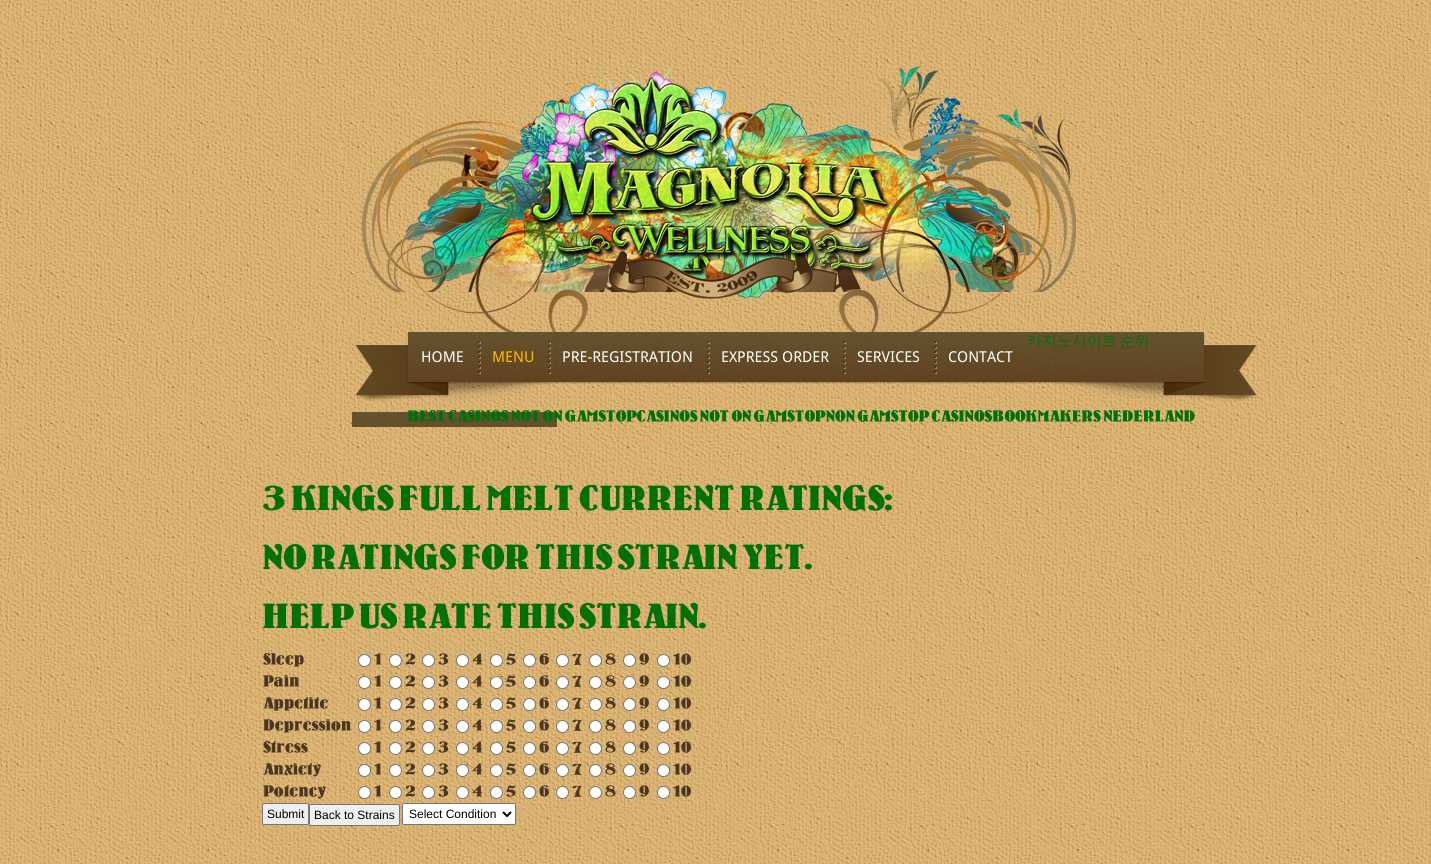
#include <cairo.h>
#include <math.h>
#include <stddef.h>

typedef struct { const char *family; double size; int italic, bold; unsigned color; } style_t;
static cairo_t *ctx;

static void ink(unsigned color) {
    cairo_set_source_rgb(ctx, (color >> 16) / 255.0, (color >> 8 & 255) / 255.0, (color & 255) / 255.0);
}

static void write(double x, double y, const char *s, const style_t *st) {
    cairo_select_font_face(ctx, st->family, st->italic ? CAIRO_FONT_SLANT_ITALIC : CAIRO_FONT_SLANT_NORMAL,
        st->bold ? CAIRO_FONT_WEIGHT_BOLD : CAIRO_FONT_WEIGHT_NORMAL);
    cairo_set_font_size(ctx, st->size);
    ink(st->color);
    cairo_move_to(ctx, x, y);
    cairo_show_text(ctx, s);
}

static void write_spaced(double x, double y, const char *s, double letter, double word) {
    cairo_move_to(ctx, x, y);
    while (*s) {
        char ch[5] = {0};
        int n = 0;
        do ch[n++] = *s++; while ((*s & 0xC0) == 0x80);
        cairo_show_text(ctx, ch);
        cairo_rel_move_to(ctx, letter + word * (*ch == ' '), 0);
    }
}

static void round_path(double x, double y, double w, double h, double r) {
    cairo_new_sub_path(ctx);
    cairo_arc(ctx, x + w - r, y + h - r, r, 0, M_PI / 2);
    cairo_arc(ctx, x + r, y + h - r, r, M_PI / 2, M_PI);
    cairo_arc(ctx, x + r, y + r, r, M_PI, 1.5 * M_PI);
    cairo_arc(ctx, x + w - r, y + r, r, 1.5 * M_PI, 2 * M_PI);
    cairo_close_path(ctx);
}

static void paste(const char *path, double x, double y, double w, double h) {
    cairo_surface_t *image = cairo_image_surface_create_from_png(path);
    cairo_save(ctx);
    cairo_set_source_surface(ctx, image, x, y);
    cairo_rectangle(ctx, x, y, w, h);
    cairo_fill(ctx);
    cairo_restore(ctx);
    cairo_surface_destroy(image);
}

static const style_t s1 = {"Droid Sans", 15, 0, 0, 0xffffff};
static const style_t s2 = {"Droid Sans", 15, 0, 0, 0xffb900};
static const style_t s3 = {"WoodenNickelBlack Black", 15, 0, 0, 0x017008};
static const style_t s4 = {"WoodenNickelBlack Black", 33, 0, 0, 0x017008};
static const style_t s5 = {"WoodenNickelBlack Black", 15, 0, 0, 0x4b3721};
static const style_t s6 = {"Liberation Sans", 12, 0, 0, 0x000000};

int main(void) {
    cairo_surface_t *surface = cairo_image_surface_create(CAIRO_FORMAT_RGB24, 1431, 864);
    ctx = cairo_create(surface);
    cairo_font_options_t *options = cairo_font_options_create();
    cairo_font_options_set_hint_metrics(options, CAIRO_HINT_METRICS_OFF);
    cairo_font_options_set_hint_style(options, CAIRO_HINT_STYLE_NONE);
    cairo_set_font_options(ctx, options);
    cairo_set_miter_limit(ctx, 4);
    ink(0xffffff);
    cairo_paint(ctx);
    paste("pic1.png", 0, 0, 1431, 864);
    paste("pic2.png", 361, 70, 715, 222);
    paste("pic3.png", 376, 64, 674, 337);
    paste("pic4.png", 352, 332, 205, 95);
    paste("pic5.png", 1055, 332, 202, 69);
    paste("pic6.png", 556, 332, 500, 52);
    cairo_select_font_face(ctx, "WenQuanYi Zen Hei Medium", CAIRO_FONT_SLANT_NORMAL, CAIRO_FONT_WEIGHT_NORMAL);
    cairo_set_font_size(ctx, 15);
    ink(0x017008);
    write_spaced(1027, 346, "카지노사이트 순위", 0, -2);
    write(421, 362, "HOME", &s1);
    paste("pic7.png", 478, 341, 3, 33);
    write(492, 362, "MENU", &s2);
    paste("pic8.png", 548, 341, 3, 33);
    write(562, 362, "PRE-REGISTRATION", &s1);
    paste("pic9.png", 707, 341, 3, 33);
    write(721, 362, "EXPRESS ORDER", &s1);
    paste("pic10.png", 843, 341, 3, 33);
    write(857, 362, "SERVICES", &s1);
    paste("pic11.png", 934, 341, 3, 33);
    write(948, 362, "CONTACT", &s1);
    write(407, 421, "BEST CASINOS NOT ON GAMSTOPCASINOS NOT ON GAMSTOPNON GAMSTOP CASINOSBOOKMAKERS NEDERLAND", &s3);
    write(262, 509, "3 KINGS FULL MELT CURRENT RATINGS:", &s4);
    write(262, 568, "NO RATINGS FOR THIS STRAIN YET.", &s4);
    write(262, 627, "HELP US RATE THIS STRAIN.", &s4);
    write(263, 664, "Sleep", &s5);
    ink(0xffffff);
    cairo_new_path(ctx);
    cairo_arc(ctx, 364.5, 660.5, 6, 0, 2 * M_PI);
    cairo_fill_preserve(ctx);
    ink(0x767676);
    cairo_set_line_width(ctx, 1);
    cairo_stroke(ctx);
    write(374, 664, "1", &s5);
    ink(0xffffff);
    cairo_new_path(ctx);
    cairo_arc(ctx, 395.5, 660.5, 6, 0, 2 * M_PI);
    cairo_fill_preserve(ctx);
    ink(0x767676);
    cairo_stroke(ctx);
    write(405, 664, "2", &s5);
    ink(0xffffff);
    cairo_new_path(ctx);
    cairo_arc(ctx, 428.5, 660.5, 6, 0, 2 * M_PI);
    cairo_fill_preserve(ctx);
    ink(0x767676);
    cairo_stroke(ctx);
    write(438, 664, "3", &s5);
    ink(0xffffff);
    cairo_new_path(ctx);
    cairo_arc(ctx, 462.5, 660.5, 6, 0, 2 * M_PI);
    cairo_fill_preserve(ctx);
    ink(0x767676);
    cairo_stroke(ctx);
    write(472, 664, "4", &s5);
    ink(0xffffff);
    cairo_new_path(ctx);
    cairo_arc(ctx, 496.5, 660.5, 6, 0, 2 * M_PI);
    cairo_fill_preserve(ctx);
    ink(0x767676);
    cairo_stroke(ctx);
    write(506, 664, "5", &s5);
    ink(0xffffff);
    cairo_new_path(ctx);
    cairo_arc(ctx, 529.5, 660.5, 6, 0, 2 * M_PI);
    cairo_fill_preserve(ctx);
    ink(0x767676);
    cairo_stroke(ctx);
    write(539, 664, "6", &s5);
    ink(0xffffff);
    cairo_new_path(ctx);
    cairo_arc(ctx, 562.5, 660.5, 6, 0, 2 * M_PI);
    cairo_fill_preserve(ctx);
    ink(0x767676);
    cairo_stroke(ctx);
    write(572, 664, "7", &s5);
    ink(0xffffff);
    cairo_new_path(ctx);
    cairo_arc(ctx, 595.5, 660.5, 6, 0, 2 * M_PI);
    cairo_fill_preserve(ctx);
    ink(0x767676);
    cairo_stroke(ctx);
    write(605, 664, "8", &s5);
    ink(0xffffff);
    cairo_new_path(ctx);
    cairo_arc(ctx, 629.5, 660.5, 6, 0, 2 * M_PI);
    cairo_fill_preserve(ctx);
    ink(0x767676);
    cairo_stroke(ctx);
    write(639, 664, "9", &s5);
    ink(0xffffff);
    cairo_new_path(ctx);
    cairo_arc(ctx, 663.5, 660.5, 6, 0, 2 * M_PI);
    cairo_fill_preserve(ctx);
    ink(0x767676);
    cairo_stroke(ctx);
    write(673, 664, "10", &s5);
    write(263, 686, "Pain", &s5);
    ink(0xffffff);
    cairo_new_path(ctx);
    cairo_arc(ctx, 364.5, 682.5, 6, 0, 2 * M_PI);
    cairo_fill_preserve(ctx);
    ink(0x767676);
    cairo_stroke(ctx);
    write(374, 686, "1", &s5);
    ink(0xffffff);
    cairo_new_path(ctx);
    cairo_arc(ctx, 395.5, 682.5, 6, 0, 2 * M_PI);
    cairo_fill_preserve(ctx);
    ink(0x767676);
    cairo_stroke(ctx);
    write(405, 686, "2", &s5);
    ink(0xffffff);
    cairo_new_path(ctx);
    cairo_arc(ctx, 428.5, 682.5, 6, 0, 2 * M_PI);
    cairo_fill_preserve(ctx);
    ink(0x767676);
    cairo_stroke(ctx);
    write(438, 686, "3", &s5);
    ink(0xffffff);
    cairo_new_path(ctx);
    cairo_arc(ctx, 462.5, 682.5, 6, 0, 2 * M_PI);
    cairo_fill_preserve(ctx);
    ink(0x767676);
    cairo_stroke(ctx);
    write(472, 686, "4", &s5);
    ink(0xffffff);
    cairo_new_path(ctx);
    cairo_arc(ctx, 496.5, 682.5, 6, 0, 2 * M_PI);
    cairo_fill_preserve(ctx);
    ink(0x767676);
    cairo_stroke(ctx);
    write(506, 686, "5", &s5);
    ink(0xffffff);
    cairo_new_path(ctx);
    cairo_arc(ctx, 529.5, 682.5, 6, 0, 2 * M_PI);
    cairo_fill_preserve(ctx);
    ink(0x767676);
    cairo_stroke(ctx);
    write(539, 686, "6", &s5);
    ink(0xffffff);
    cairo_new_path(ctx);
    cairo_arc(ctx, 562.5, 682.5, 6, 0, 2 * M_PI);
    cairo_fill_preserve(ctx);
    ink(0x767676);
    cairo_stroke(ctx);
    write(572, 686, "7", &s5);
    ink(0xffffff);
    cairo_new_path(ctx);
    cairo_arc(ctx, 595.5, 682.5, 6, 0, 2 * M_PI);
    cairo_fill_preserve(ctx);
    ink(0x767676);
    cairo_stroke(ctx);
    write(605, 686, "8", &s5);
    ink(0xffffff);
    cairo_new_path(ctx);
    cairo_arc(ctx, 629.5, 682.5, 6, 0, 2 * M_PI);
    cairo_fill_preserve(ctx);
    ink(0x767676);
    cairo_stroke(ctx);
    write(639, 686, "9", &s5);
    ink(0xffffff);
    cairo_new_path(ctx);
    cairo_arc(ctx, 663.5, 682.5, 6, 0, 2 * M_PI);
    cairo_fill_preserve(ctx);
    ink(0x767676);
    cairo_stroke(ctx);
    write(673, 686, "10", &s5);
    write(263, 708, "Appetite", &s5);
    ink(0xffffff);
    cairo_new_path(ctx);
    cairo_arc(ctx, 364.5, 704.5, 6, 0, 2 * M_PI);
    cairo_fill_preserve(ctx);
    ink(0x767676);
    cairo_stroke(ctx);
    write(374, 708, "1", &s5);
    ink(0xffffff);
    cairo_new_path(ctx);
    cairo_arc(ctx, 395.5, 704.5, 6, 0, 2 * M_PI);
    cairo_fill_preserve(ctx);
    ink(0x767676);
    cairo_stroke(ctx);
    write(405, 708, "2", &s5);
    ink(0xffffff);
    cairo_new_path(ctx);
    cairo_arc(ctx, 428.5, 704.5, 6, 0, 2 * M_PI);
    cairo_fill_preserve(ctx);
    ink(0x767676);
    cairo_stroke(ctx);
    write(438, 708, "3", &s5);
    ink(0xffffff);
    cairo_new_path(ctx);
    cairo_arc(ctx, 462.5, 704.5, 6, 0, 2 * M_PI);
    cairo_fill_preserve(ctx);
    ink(0x767676);
    cairo_stroke(ctx);
    write(472, 708, "4", &s5);
    ink(0xffffff);
    cairo_new_path(ctx);
    cairo_arc(ctx, 496.5, 704.5, 6, 0, 2 * M_PI);
    cairo_fill_preserve(ctx);
    ink(0x767676);
    cairo_stroke(ctx);
    write(506, 708, "5", &s5);
    ink(0xffffff);
    cairo_new_path(ctx);
    cairo_arc(ctx, 529.5, 704.5, 6, 0, 2 * M_PI);
    cairo_fill_preserve(ctx);
    ink(0x767676);
    cairo_stroke(ctx);
    write(539, 708, "6", &s5);
    ink(0xffffff);
    cairo_new_path(ctx);
    cairo_arc(ctx, 562.5, 704.5, 6, 0, 2 * M_PI);
    cairo_fill_preserve(ctx);
    ink(0x767676);
    cairo_stroke(ctx);
    write(572, 708, "7", &s5);
    ink(0xffffff);
    cairo_new_path(ctx);
    cairo_arc(ctx, 595.5, 704.5, 6, 0, 2 * M_PI);
    cairo_fill_preserve(ctx);
    ink(0x767676);
    cairo_stroke(ctx);
    write(605, 708, "8", &s5);
    ink(0xffffff);
    cairo_new_path(ctx);
    cairo_arc(ctx, 629.5, 704.5, 6, 0, 2 * M_PI);
    cairo_fill_preserve(ctx);
    ink(0x767676);
    cairo_stroke(ctx);
    write(639, 708, "9", &s5);
    ink(0xffffff);
    cairo_new_path(ctx);
    cairo_arc(ctx, 663.5, 704.5, 6, 0, 2 * M_PI);
    cairo_fill_preserve(ctx);
    ink(0x767676);
    cairo_stroke(ctx);
    write(673, 708, "10", &s5);
    write(263, 730, "Depression", &s5);
    ink(0xffffff);
    cairo_new_path(ctx);
    cairo_arc(ctx, 364.5, 726.5, 6, 0, 2 * M_PI);
    cairo_fill_preserve(ctx);
    ink(0x767676);
    cairo_stroke(ctx);
    write(374, 730, "1", &s5);
    ink(0xffffff);
    cairo_new_path(ctx);
    cairo_arc(ctx, 395.5, 726.5, 6, 0, 2 * M_PI);
    cairo_fill_preserve(ctx);
    ink(0x767676);
    cairo_stroke(ctx);
    write(405, 730, "2", &s5);
    ink(0xffffff);
    cairo_new_path(ctx);
    cairo_arc(ctx, 428.5, 726.5, 6, 0, 2 * M_PI);
    cairo_fill_preserve(ctx);
    ink(0x767676);
    cairo_stroke(ctx);
    write(438, 730, "3", &s5);
    ink(0xffffff);
    cairo_new_path(ctx);
    cairo_arc(ctx, 462.5, 726.5, 6, 0, 2 * M_PI);
    cairo_fill_preserve(ctx);
    ink(0x767676);
    cairo_stroke(ctx);
    write(472, 730, "4", &s5);
    ink(0xffffff);
    cairo_new_path(ctx);
    cairo_arc(ctx, 496.5, 726.5, 6, 0, 2 * M_PI);
    cairo_fill_preserve(ctx);
    ink(0x767676);
    cairo_stroke(ctx);
    write(506, 730, "5", &s5);
    ink(0xffffff);
    cairo_new_path(ctx);
    cairo_arc(ctx, 529.5, 726.5, 6, 0, 2 * M_PI);
    cairo_fill_preserve(ctx);
    ink(0x767676);
    cairo_stroke(ctx);
    write(539, 730, "6", &s5);
    ink(0xffffff);
    cairo_new_path(ctx);
    cairo_arc(ctx, 562.5, 726.5, 6, 0, 2 * M_PI);
    cairo_fill_preserve(ctx);
    ink(0x767676);
    cairo_stroke(ctx);
    write(572, 730, "7", &s5);
    ink(0xffffff);
    cairo_new_path(ctx);
    cairo_arc(ctx, 595.5, 726.5, 6, 0, 2 * M_PI);
    cairo_fill_preserve(ctx);
    ink(0x767676);
    cairo_stroke(ctx);
    write(605, 730, "8", &s5);
    ink(0xffffff);
    cairo_new_path(ctx);
    cairo_arc(ctx, 629.5, 726.5, 6, 0, 2 * M_PI);
    cairo_fill_preserve(ctx);
    ink(0x767676);
    cairo_stroke(ctx);
    write(639, 730, "9", &s5);
    ink(0xffffff);
    cairo_new_path(ctx);
    cairo_arc(ctx, 663.5, 726.5, 6, 0, 2 * M_PI);
    cairo_fill_preserve(ctx);
    ink(0x767676);
    cairo_stroke(ctx);
    write(673, 730, "10", &s5);
    write(263, 752, "Stress", &s5);
    ink(0xffffff);
    cairo_new_path(ctx);
    cairo_arc(ctx, 364.5, 748.5, 6, 0, 2 * M_PI);
    cairo_fill_preserve(ctx);
    ink(0x767676);
    cairo_stroke(ctx);
    write(374, 752, "1", &s5);
    ink(0xffffff);
    cairo_new_path(ctx);
    cairo_arc(ctx, 395.5, 748.5, 6, 0, 2 * M_PI);
    cairo_fill_preserve(ctx);
    ink(0x767676);
    cairo_stroke(ctx);
    write(405, 752, "2", &s5);
    ink(0xffffff);
    cairo_new_path(ctx);
    cairo_arc(ctx, 428.5, 748.5, 6, 0, 2 * M_PI);
    cairo_fill_preserve(ctx);
    ink(0x767676);
    cairo_stroke(ctx);
    write(438, 752, "3", &s5);
    ink(0xffffff);
    cairo_new_path(ctx);
    cairo_arc(ctx, 462.5, 748.5, 6, 0, 2 * M_PI);
    cairo_fill_preserve(ctx);
    ink(0x767676);
    cairo_stroke(ctx);
    write(472, 752, "4", &s5);
    ink(0xffffff);
    cairo_new_path(ctx);
    cairo_arc(ctx, 496.5, 748.5, 6, 0, 2 * M_PI);
    cairo_fill_preserve(ctx);
    ink(0x767676);
    cairo_stroke(ctx);
    write(506, 752, "5", &s5);
    ink(0xffffff);
    cairo_new_path(ctx);
    cairo_arc(ctx, 529.5, 748.5, 6, 0, 2 * M_PI);
    cairo_fill_preserve(ctx);
    ink(0x767676);
    cairo_stroke(ctx);
    write(539, 752, "6", &s5);
    ink(0xffffff);
    cairo_new_path(ctx);
    cairo_arc(ctx, 562.5, 748.5, 6, 0, 2 * M_PI);
    cairo_fill_preserve(ctx);
    ink(0x767676);
    cairo_stroke(ctx);
    write(572, 752, "7", &s5);
    ink(0xffffff);
    cairo_new_path(ctx);
    cairo_arc(ctx, 595.5, 748.5, 6, 0, 2 * M_PI);
    cairo_fill_preserve(ctx);
    ink(0x767676);
    cairo_stroke(ctx);
    write(605, 752, "8", &s5);
    ink(0xffffff);
    cairo_new_path(ctx);
    cairo_arc(ctx, 629.5, 748.5, 6, 0, 2 * M_PI);
    cairo_fill_preserve(ctx);
    ink(0x767676);
    cairo_stroke(ctx);
    write(639, 752, "9", &s5);
    ink(0xffffff);
    cairo_new_path(ctx);
    cairo_arc(ctx, 663.5, 748.5, 6, 0, 2 * M_PI);
    cairo_fill_preserve(ctx);
    ink(0x767676);
    cairo_stroke(ctx);
    write(673, 752, "10", &s5);
    write(263, 774, "Anxiety", &s5);
    ink(0xffffff);
    cairo_new_path(ctx);
    cairo_arc(ctx, 364.5, 770.5, 6, 0, 2 * M_PI);
    cairo_fill_preserve(ctx);
    ink(0x767676);
    cairo_stroke(ctx);
    write(374, 774, "1", &s5);
    ink(0xffffff);
    cairo_new_path(ctx);
    cairo_arc(ctx, 395.5, 770.5, 6, 0, 2 * M_PI);
    cairo_fill_preserve(ctx);
    ink(0x767676);
    cairo_stroke(ctx);
    write(405, 774, "2", &s5);
    ink(0xffffff);
    cairo_new_path(ctx);
    cairo_arc(ctx, 428.5, 770.5, 6, 0, 2 * M_PI);
    cairo_fill_preserve(ctx);
    ink(0x767676);
    cairo_stroke(ctx);
    write(438, 774, "3", &s5);
    ink(0xffffff);
    cairo_new_path(ctx);
    cairo_arc(ctx, 462.5, 770.5, 6, 0, 2 * M_PI);
    cairo_fill_preserve(ctx);
    ink(0x767676);
    cairo_stroke(ctx);
    write(472, 774, "4", &s5);
    ink(0xffffff);
    cairo_new_path(ctx);
    cairo_arc(ctx, 496.5, 770.5, 6, 0, 2 * M_PI);
    cairo_fill_preserve(ctx);
    ink(0x767676);
    cairo_stroke(ctx);
    write(506, 774, "5", &s5);
    ink(0xffffff);
    cairo_new_path(ctx);
    cairo_arc(ctx, 529.5, 770.5, 6, 0, 2 * M_PI);
    cairo_fill_preserve(ctx);
    ink(0x767676);
    cairo_stroke(ctx);
    write(539, 774, "6", &s5);
    ink(0xffffff);
    cairo_new_path(ctx);
    cairo_arc(ctx, 562.5, 770.5, 6, 0, 2 * M_PI);
    cairo_fill_preserve(ctx);
    ink(0x767676);
    cairo_stroke(ctx);
    write(572, 774, "7", &s5);
    ink(0xffffff);
    cairo_new_path(ctx);
    cairo_arc(ctx, 595.5, 770.5, 6, 0, 2 * M_PI);
    cairo_fill_preserve(ctx);
    ink(0x767676);
    cairo_stroke(ctx);
    write(605, 774, "8", &s5);
    ink(0xffffff);
    cairo_new_path(ctx);
    cairo_arc(ctx, 629.5, 770.5, 6, 0, 2 * M_PI);
    cairo_fill_preserve(ctx);
    ink(0x767676);
    cairo_stroke(ctx);
    write(639, 774, "9", &s5);
    ink(0xffffff);
    cairo_new_path(ctx);
    cairo_arc(ctx, 663.5, 770.5, 6, 0, 2 * M_PI);
    cairo_fill_preserve(ctx);
    ink(0x767676);
    cairo_stroke(ctx);
    write(673, 774, "10", &s5);
    write(263, 796, "Potency", &s5);
    ink(0xffffff);
    cairo_new_path(ctx);
    cairo_arc(ctx, 364.5, 792.5, 6, 0, 2 * M_PI);
    cairo_fill_preserve(ctx);
    ink(0x767676);
    cairo_stroke(ctx);
    write(374, 796, "1", &s5);
    ink(0xffffff);
    cairo_new_path(ctx);
    cairo_arc(ctx, 395.5, 792.5, 6, 0, 2 * M_PI);
    cairo_fill_preserve(ctx);
    ink(0x767676);
    cairo_stroke(ctx);
    write(405, 796, "2", &s5);
    ink(0xffffff);
    cairo_new_path(ctx);
    cairo_arc(ctx, 428.5, 792.5, 6, 0, 2 * M_PI);
    cairo_fill_preserve(ctx);
    ink(0x767676);
    cairo_stroke(ctx);
    write(438, 796, "3", &s5);
    ink(0xffffff);
    cairo_new_path(ctx);
    cairo_arc(ctx, 462.5, 792.5, 6, 0, 2 * M_PI);
    cairo_fill_preserve(ctx);
    ink(0x767676);
    cairo_stroke(ctx);
    write(472, 796, "4", &s5);
    ink(0xffffff);
    cairo_new_path(ctx);
    cairo_arc(ctx, 496.5, 792.5, 6, 0, 2 * M_PI);
    cairo_fill_preserve(ctx);
    ink(0x767676);
    cairo_stroke(ctx);
    write(506, 796, "5", &s5);
    ink(0xffffff);
    cairo_new_path(ctx);
    cairo_arc(ctx, 529.5, 792.5, 6, 0, 2 * M_PI);
    cairo_fill_preserve(ctx);
    ink(0x767676);
    cairo_stroke(ctx);
    write(539, 796, "6", &s5);
    ink(0xffffff);
    cairo_new_path(ctx);
    cairo_arc(ctx, 562.5, 792.5, 6, 0, 2 * M_PI);
    cairo_fill_preserve(ctx);
    ink(0x767676);
    cairo_stroke(ctx);
    write(572, 796, "7", &s5);
    ink(0xffffff);
    cairo_new_path(ctx);
    cairo_arc(ctx, 595.5, 792.5, 6, 0, 2 * M_PI);
    cairo_fill_preserve(ctx);
    ink(0x767676);
    cairo_stroke(ctx);
    write(605, 796, "8", &s5);
    ink(0xffffff);
    cairo_new_path(ctx);
    cairo_arc(ctx, 629.5, 792.5, 6, 0, 2 * M_PI);
    cairo_fill_preserve(ctx);
    ink(0x767676);
    cairo_stroke(ctx);
    write(639, 796, "9", &s5);
    ink(0xffffff);
    cairo_new_path(ctx);
    cairo_arc(ctx, 663.5, 792.5, 6, 0, 2 * M_PI);
    cairo_fill_preserve(ctx);
    ink(0x767676);
    cairo_stroke(ctx);
    write(673, 796, "10", &s5);
    ink(0xefefef);
    round_path(262.5, 803.5, 46, 21, 1.5);
    cairo_fill_preserve(ctx);
    ink(0x767676);
    cairo_stroke(ctx);
    write(267, 818, "Submit", &s6);
    ink(0xefefef);
    round_path(309.5, 804.5, 90, 21, 1.5);
    cairo_fill_preserve(ctx);
    ink(0x767676);
    cairo_stroke(ctx);
    write(314, 819, "Back to Strains", &s6);
    ink(0xffffff);
    round_path(402.5, 803.5, 113, 21, 1.5);
    cairo_fill_preserve(ctx);
    ink(0x767676);
    cairo_stroke(ctx);
    cairo_new_path(ctx);
    cairo_move_to(ctx, 503, 812);
    cairo_line_to(ctx, 507, 816);
    cairo_line_to(ctx, 511, 812);
    ink(0x000000);
    cairo_set_line_width(ctx, 2);
    cairo_stroke(ctx);
    write(409, 818, "Select Condition", &s6);
    cairo_surface_write_to_png(surface, "screenshot.png");
    cairo_font_options_destroy(options);
    cairo_destroy(ctx);
    cairo_surface_destroy(surface);
    return 0;
}
